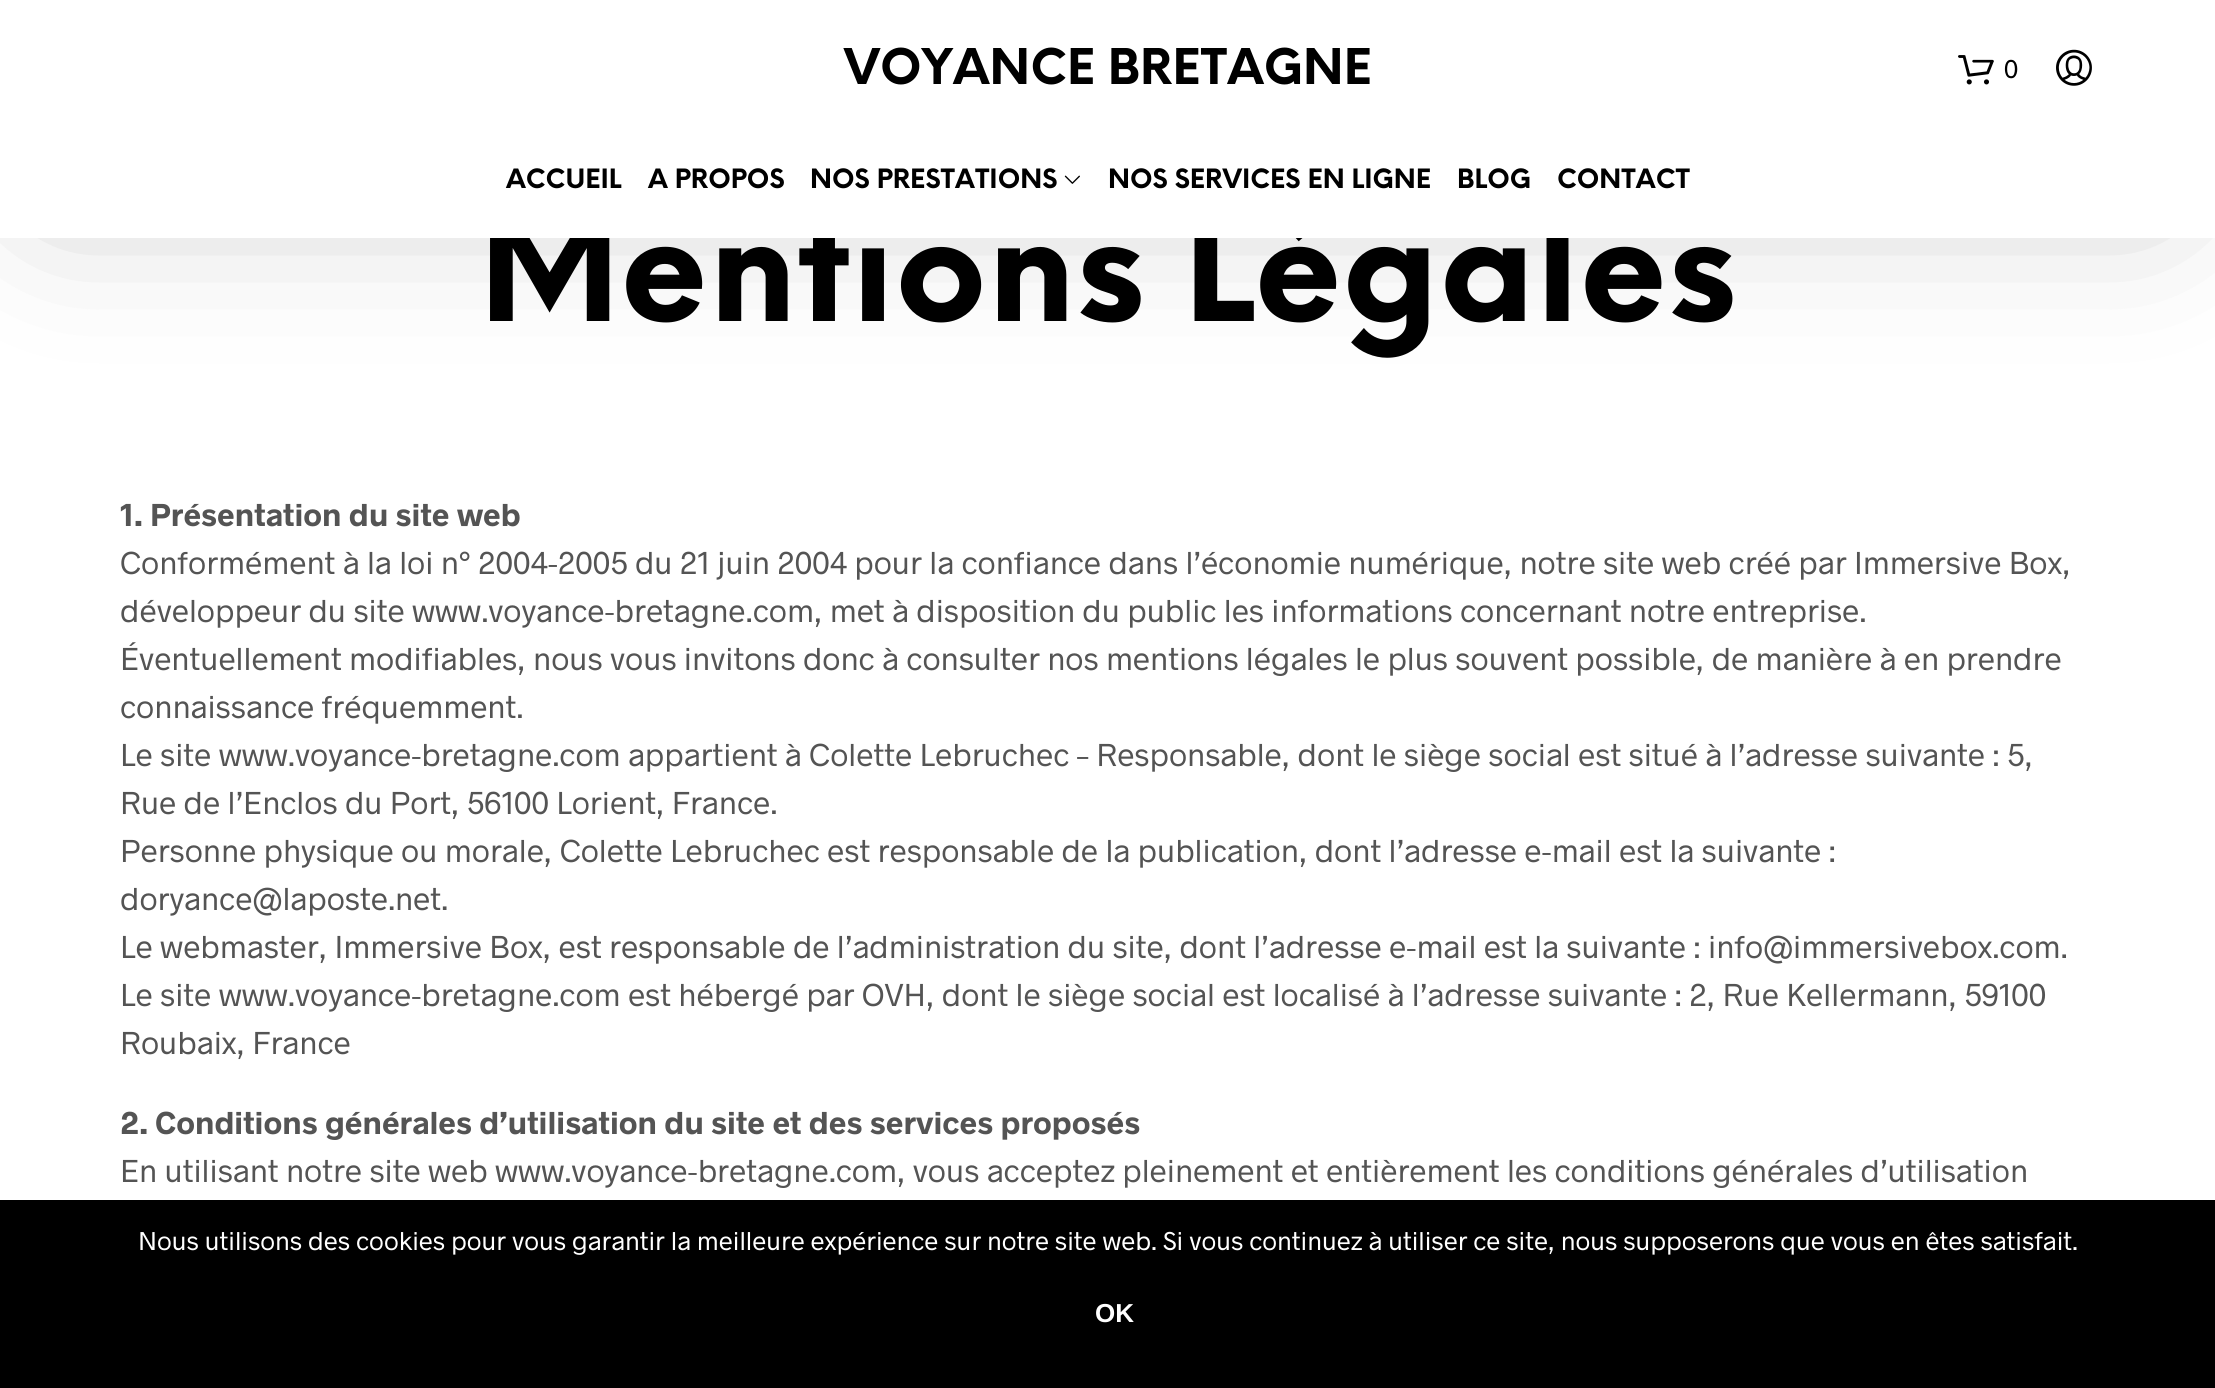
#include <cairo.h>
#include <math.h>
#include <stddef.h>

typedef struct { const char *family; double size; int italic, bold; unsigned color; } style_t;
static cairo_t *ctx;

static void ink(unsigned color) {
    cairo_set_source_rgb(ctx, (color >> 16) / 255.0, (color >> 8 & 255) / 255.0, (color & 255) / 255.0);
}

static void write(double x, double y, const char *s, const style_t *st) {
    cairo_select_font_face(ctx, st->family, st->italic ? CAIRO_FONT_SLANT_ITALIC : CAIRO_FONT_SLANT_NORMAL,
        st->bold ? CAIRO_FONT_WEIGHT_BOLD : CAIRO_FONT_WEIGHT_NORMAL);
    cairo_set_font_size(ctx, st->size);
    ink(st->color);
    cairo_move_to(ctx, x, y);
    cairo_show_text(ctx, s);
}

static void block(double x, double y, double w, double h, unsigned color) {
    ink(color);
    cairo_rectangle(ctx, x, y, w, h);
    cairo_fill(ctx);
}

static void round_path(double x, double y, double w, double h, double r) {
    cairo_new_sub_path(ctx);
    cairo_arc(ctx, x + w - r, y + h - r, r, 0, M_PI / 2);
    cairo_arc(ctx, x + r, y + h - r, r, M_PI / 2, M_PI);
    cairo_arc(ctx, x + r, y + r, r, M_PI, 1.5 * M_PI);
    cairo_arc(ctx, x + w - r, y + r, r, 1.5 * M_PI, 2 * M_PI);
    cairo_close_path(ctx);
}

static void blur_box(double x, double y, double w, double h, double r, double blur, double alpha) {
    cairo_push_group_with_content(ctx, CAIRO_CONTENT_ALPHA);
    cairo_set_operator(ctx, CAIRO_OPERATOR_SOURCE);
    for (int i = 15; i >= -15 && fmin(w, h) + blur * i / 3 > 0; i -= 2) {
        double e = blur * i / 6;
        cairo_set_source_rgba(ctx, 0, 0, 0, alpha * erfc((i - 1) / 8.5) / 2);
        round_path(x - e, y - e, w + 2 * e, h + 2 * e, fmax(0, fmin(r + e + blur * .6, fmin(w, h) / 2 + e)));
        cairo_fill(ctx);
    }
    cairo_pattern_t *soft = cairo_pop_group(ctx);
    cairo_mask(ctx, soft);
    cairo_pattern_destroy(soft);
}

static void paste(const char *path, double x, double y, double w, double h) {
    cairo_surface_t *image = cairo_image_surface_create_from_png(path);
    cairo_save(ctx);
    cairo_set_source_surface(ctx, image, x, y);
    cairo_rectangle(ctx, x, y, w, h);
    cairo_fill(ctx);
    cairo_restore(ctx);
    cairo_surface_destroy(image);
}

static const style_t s1 = {"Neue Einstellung", 145.25, 0, 1, 0x000000};
static const style_t s2 = {"Neue Einstellung", 48, 0, 1, 0x000000};
static const style_t s3 = {"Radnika", 26, 0, 0, 0x000000};
static const style_t s4 = {"Neue Einstellung", 26, 0, 1, 0x000000};
static const style_t s5 = {"Radnika", 32, 0, 1, 0x545454};
static const style_t s6 = {"Radnika", 32, 0, 0, 0x545454};
static const style_t s7 = {"Radnika", 26, 0, 0, 0xffffff};
static const style_t s8 = {"Liberation Sans", 26, 0, 1, 0xffffff};

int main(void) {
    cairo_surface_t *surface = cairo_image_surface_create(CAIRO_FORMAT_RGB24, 2215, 1388);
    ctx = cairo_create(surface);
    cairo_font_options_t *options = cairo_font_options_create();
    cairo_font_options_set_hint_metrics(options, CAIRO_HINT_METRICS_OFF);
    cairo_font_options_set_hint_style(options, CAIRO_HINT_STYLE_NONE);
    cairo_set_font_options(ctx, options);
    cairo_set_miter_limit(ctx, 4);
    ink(0xffffff);
    cairo_paint(ctx);
    ink(0x000000);
    blur_box(50, 58, 2108, 130, 0, 81, 0.29);
    write(479, 321, "Mentions Légales", &s1);
    block(0, 0, 2215, 238, 0xffffff);
    write(844, 84, "VOYANCE BRETAGNE", &s2);
    paste("pic1.png", 1958, 55, 36, 30);
    write(2004, 78, "0", &s3);
    paste("pic2.png", 2056, 49, 36, 37);
    write(506, 188, "ACCUEIL", &s4);
    write(648, 188, "A PROPOS", &s4);
    write(810, 188, "NOS PRESTATIONS", &s4);
    paste("pic3.png", 1064, 175, 16, 9);
    write(1108, 188, "NOS SERVICES EN LIGNE", &s4);
    write(1457, 188, "BLOG", &s4);
    write(1557, 188, "CONTACT", &s4);
    write(120, 526, "1. Présentation du site web", &s5);
    write(120, 574, "Conformément à la loi n° 2004-2005 du 21 juin 2004 pour la confiance dans l’économie numérique, notre site web créé par Immersive Box,", &s6);
    write(120, 622, "développeur du site www.voyance-bretagne.com, met à disposition du public les informations concernant notre entreprise.", &s6);
    write(120, 670, "Éventuellement modifiables, nous vous invitons donc à consulter nos mentions légales le plus souvent possible, de manière à en prendre", &s6);
    write(120, 718, "connaissance fréquemment.", &s6);
    write(120, 766, "Le site www.voyance-bretagne.com appartient à Colette Lebruchec – Responsable, dont le siège social est situé à l’adresse suivante : 5,", &s6);
    write(120, 814, "Rue de l’Enclos du Port, 56100 Lorient, France.", &s6);
    write(120, 862, "Personne physique ou morale, Colette Lebruchec est responsable de la publication, dont l’adresse e-mail est la suivante :", &s6);
    write(120, 910, "doryance@laposte.net.", &s6);
    write(120, 958, "Le webmaster, Immersive Box, est responsable de l’administration du site, dont l’adresse e-mail est la suivante : info@immersivebox.com.", &s6);
    write(120, 1006, "Le site www.voyance-bretagne.com est hébergé par OVH, dont le siège social est localisé à l’adresse suivante : 2, Rue Kellermann, 59100", &s6);
    write(120, 1054, "Roubaix, France", &s6);
    write(120, 1134, "2. Conditions générales d’utilisation du site et des services proposés", &s5);
    write(120, 1182, "En utilisant notre site web www.voyance-bretagne.com, vous acceptez pleinement et entièrement les conditions générales d’utilisation", &s6);
    block(0, 1200, 2215, 188, 0x000000);
    write(138, 1250, "Nous utilisons des cookies pour vous garantir la meilleure expérience sur notre site web. Si vous continuez à utiliser ce site, nous supposerons que vous en êtes satisfait.", &s7);
    write(1095, 1322, "OK", &s8);
    cairo_surface_write_to_png(surface, "screenshot.png");
    cairo_font_options_destroy(options);
    cairo_destroy(ctx);
    cairo_surface_destroy(surface);
    return 0;
}
